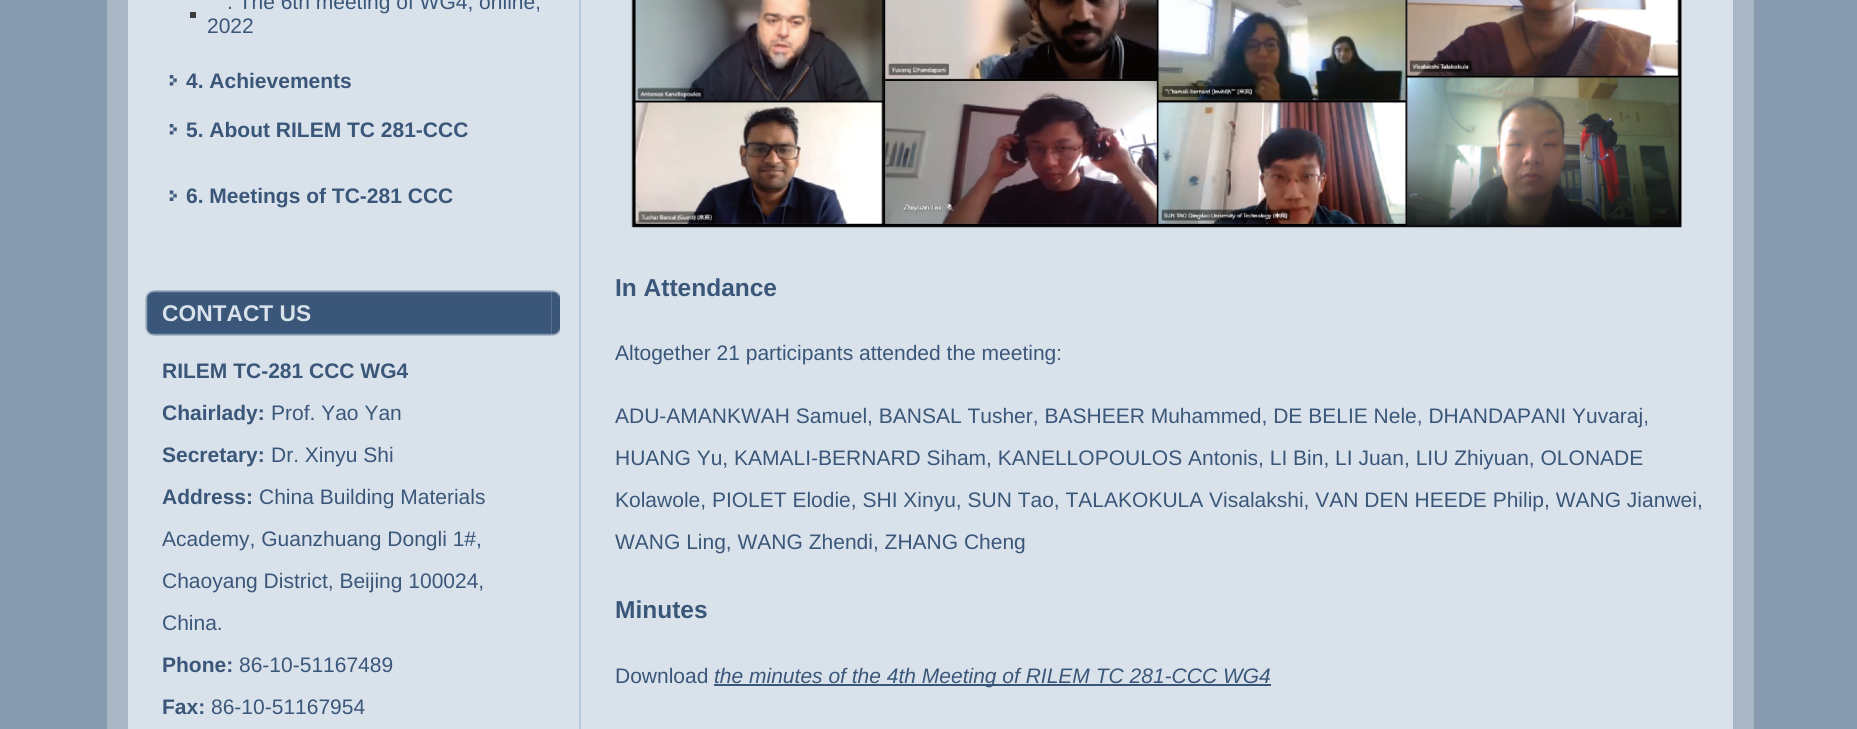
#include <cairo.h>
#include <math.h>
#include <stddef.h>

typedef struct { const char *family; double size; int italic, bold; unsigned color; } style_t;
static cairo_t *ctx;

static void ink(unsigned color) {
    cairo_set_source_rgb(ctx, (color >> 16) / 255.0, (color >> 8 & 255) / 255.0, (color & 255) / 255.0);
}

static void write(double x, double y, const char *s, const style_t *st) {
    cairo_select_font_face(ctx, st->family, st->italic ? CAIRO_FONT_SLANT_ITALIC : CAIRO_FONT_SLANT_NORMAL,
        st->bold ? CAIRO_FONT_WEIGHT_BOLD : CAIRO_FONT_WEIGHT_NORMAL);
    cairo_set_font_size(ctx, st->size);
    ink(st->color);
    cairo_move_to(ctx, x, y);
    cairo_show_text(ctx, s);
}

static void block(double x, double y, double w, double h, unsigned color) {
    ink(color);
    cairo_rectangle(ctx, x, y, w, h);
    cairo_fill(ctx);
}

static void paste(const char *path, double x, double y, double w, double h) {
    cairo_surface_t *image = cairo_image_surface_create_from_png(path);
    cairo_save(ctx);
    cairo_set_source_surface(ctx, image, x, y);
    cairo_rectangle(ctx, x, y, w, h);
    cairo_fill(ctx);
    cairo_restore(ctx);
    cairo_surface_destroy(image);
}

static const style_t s1 = {"Liberation Sans", 21, 0, 0, 0x3a5679};
static const style_t s2 = {"Liberation Sans", 21, 0, 1, 0x3a5679};
static const style_t s3 = {"Liberation Sans", 22.75, 0, 1, 0xd9e2eb};
static const style_t s4 = {"Liberation Sans", 24.5, 0, 1, 0x3a5679};
static const style_t s5 = {"Liberation Sans", 21, 1, 0, 0x3a5679};

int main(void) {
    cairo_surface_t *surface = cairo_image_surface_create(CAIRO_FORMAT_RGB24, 1857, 729);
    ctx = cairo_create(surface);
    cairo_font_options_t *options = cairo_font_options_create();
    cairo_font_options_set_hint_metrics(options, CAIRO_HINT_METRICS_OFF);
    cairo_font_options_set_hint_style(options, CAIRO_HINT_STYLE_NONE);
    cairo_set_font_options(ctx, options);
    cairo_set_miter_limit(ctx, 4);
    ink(0x889aad);
    cairo_paint(ctx);
    block(107, 0, 21, 729, 0xa9b6c3);
    block(128, 0, 1605, 729, 0xd9e2eb);
    block(190, 12, 6, 6, 0x3c3c3c);
    write(227, 9, ". The 6th meeting of WG4, online,", &s1);
    write(207, 33, "2022", &s1);
    paste("pic1.png", 169, 75, 8, 11);
    write(186, 88, "4. Achievements", &s2);
    paste("pic1.png", 169, 124, 8, 11);
    write(186, 137, "5. About RILEM TC 281-CCC", &s2);
    paste("pic2.png", 169, 190, 8, 11);
    write(186, 203, "6. Meetings of TC-281 CCC", &s2);
    paste("pic3.png", 145, 290, 9, 46);
    paste("pic4.png", 154, 290, 398, 46);
    write(162, 321, "CONTACT US", &s3);
    paste("pic5.png", 551, 290, 9, 46);
    write(162, 378, "RILEM TC-281 CCC WG4", &s2);
    write(162, 420, "Chairlady:", &s2);
    write(271, 420, "Prof. Yao Yan", &s1);
    write(162, 462, "Secretary:", &s2);
    write(271, 462, "Dr. Xinyu Shi", &s1);
    write(162, 504, "Address:", &s2);
    write(259, 504, "China Building Materials", &s1);
    write(162, 546, "Academy, Guanzhuang Dongli 1#,", &s1);
    write(162, 588, "Chaoyang District, Beijing 100024,", &s1);
    write(162, 630, "China.", &s1);
    write(162, 672, "Phone:", &s2);
    write(239, 672, "86-10-51167489", &s1);
    write(162, 714, "Fax:", &s2);
    write(211, 714, "86-10-51167954", &s1);
    block(579, 0, 2, 729, 0xb7c9dd);
    paste("pic6.png", 631, 0, 1051, 228);
    write(615, 296, "In Attendance", &s4);
    write(615, 360, "Altogether 21 participants attended the meeting:", &s1);
    write(615, 423, "ADU-AMANKWAH Samuel, BANSAL Tusher, BASHEER Muhammed, DE BELIE Nele, DHANDAPANI Yuvaraj,", &s1);
    write(615, 465, "HUANG Yu, KAMALI-BERNARD Siham, KANELLOPOULOS Antonis, LI Bin, LI Juan, LIU Zhiyuan, OLONADE", &s1);
    write(615, 507, "Kolawole, PIOLET Elodie, SHI Xinyu, SUN Tao, TALAKOKULA Visalakshi, VAN DEN HEEDE Philip, WANG Jianwei,", &s1);
    write(615, 549, "WANG Ling, WANG Zhendi, ZHANG Cheng", &s1);
    write(615, 618, "Minutes", &s4);
    write(615, 683, "Download", &s1);
    block(714, 684, 557, 2, 0x3a5679);
    write(714, 683, "the minutes of the 4th Meeting of RILEM TC 281-CCC WG4", &s5);
    block(1733, 0, 21, 729, 0xa9b6c3);
    cairo_surface_write_to_png(surface, "screenshot.png");
    cairo_font_options_destroy(options);
    cairo_destroy(ctx);
    cairo_surface_destroy(surface);
    return 0;
}
